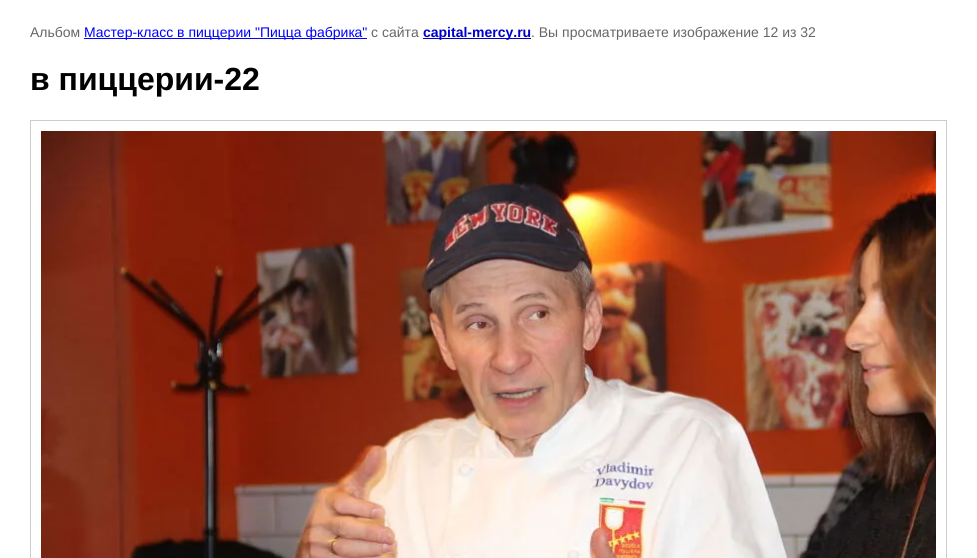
#include <cairo.h>
#include <math.h>
#include <stddef.h>

typedef struct { const char *family; double size; int italic, bold; unsigned color; } style_t;
static cairo_t *ctx;

static void ink(unsigned color) {
    cairo_set_source_rgb(ctx, (color >> 16) / 255.0, (color >> 8 & 255) / 255.0, (color & 255) / 255.0);
}

static void write(double x, double y, const char *s, const style_t *st) {
    cairo_select_font_face(ctx, st->family, st->italic ? CAIRO_FONT_SLANT_ITALIC : CAIRO_FONT_SLANT_NORMAL,
        st->bold ? CAIRO_FONT_WEIGHT_BOLD : CAIRO_FONT_WEIGHT_NORMAL);
    cairo_set_font_size(ctx, st->size);
    ink(st->color);
    cairo_move_to(ctx, x, y);
    cairo_show_text(ctx, s);
}

static void block(double x, double y, double w, double h, unsigned color) {
    ink(color);
    cairo_rectangle(ctx, x, y, w, h);
    cairo_fill(ctx);
}

static void paste(const char *path, double x, double y, double w, double h) {
    cairo_surface_t *image = cairo_image_surface_create_from_png(path);
    cairo_save(ctx);
    cairo_set_source_surface(ctx, image, x, y);
    cairo_rectangle(ctx, x, y, w, h);
    cairo_fill(ctx);
    cairo_restore(ctx);
    cairo_surface_destroy(image);
}

static const style_t s1 = {"Liberation Sans", 14, 0, 0, 0x666666};
static const style_t s2 = {"Liberation Sans", 14, 0, 0, 0x0000ff};
static const style_t s3 = {"Liberation Sans", 14, 0, 1, 0x0000cc};
static const style_t s4 = {"Liberation Sans", 32, 0, 1, 0x000000};

int main(void) {
    cairo_surface_t *surface = cairo_image_surface_create(CAIRO_FORMAT_RGB24, 977, 558);
    ctx = cairo_create(surface);
    cairo_font_options_t *options = cairo_font_options_create();
    cairo_font_options_set_hint_metrics(options, CAIRO_HINT_METRICS_OFF);
    cairo_font_options_set_hint_style(options, CAIRO_HINT_STYLE_NONE);
    cairo_set_font_options(ctx, options);
    cairo_set_miter_limit(ctx, 4);
    ink(0xffffff);
    cairo_paint(ctx);
    write(30, 37, "Альбом", &s1);
    block(84, 38, 283, 1, 0x0000ff);
    write(84, 37, "Мастер-класс в пиццерии \"Пицца фабрика\"", &s2);
    write(371, 37, "с сайта", &s1);
    block(423, 38, 108, 1, 0x0000cc);
    write(423, 37, "capital-mercy.ru", &s3);
    write(531, 37, ". Вы просматриваете изображение 12 из 32", &s1);
    write(30, 90, "в пиццерии-22", &s4);
    cairo_rectangle(ctx, 30.5, 120.5, 916, 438);
    ink(0xcccccc);
    cairo_set_line_width(ctx, 1);
    cairo_stroke(ctx);
    paste("pic1.png", 41, 131, 895, 427);
    cairo_surface_write_to_png(surface, "screenshot.png");
    cairo_font_options_destroy(options);
    cairo_destroy(ctx);
    cairo_surface_destroy(surface);
    return 0;
}
